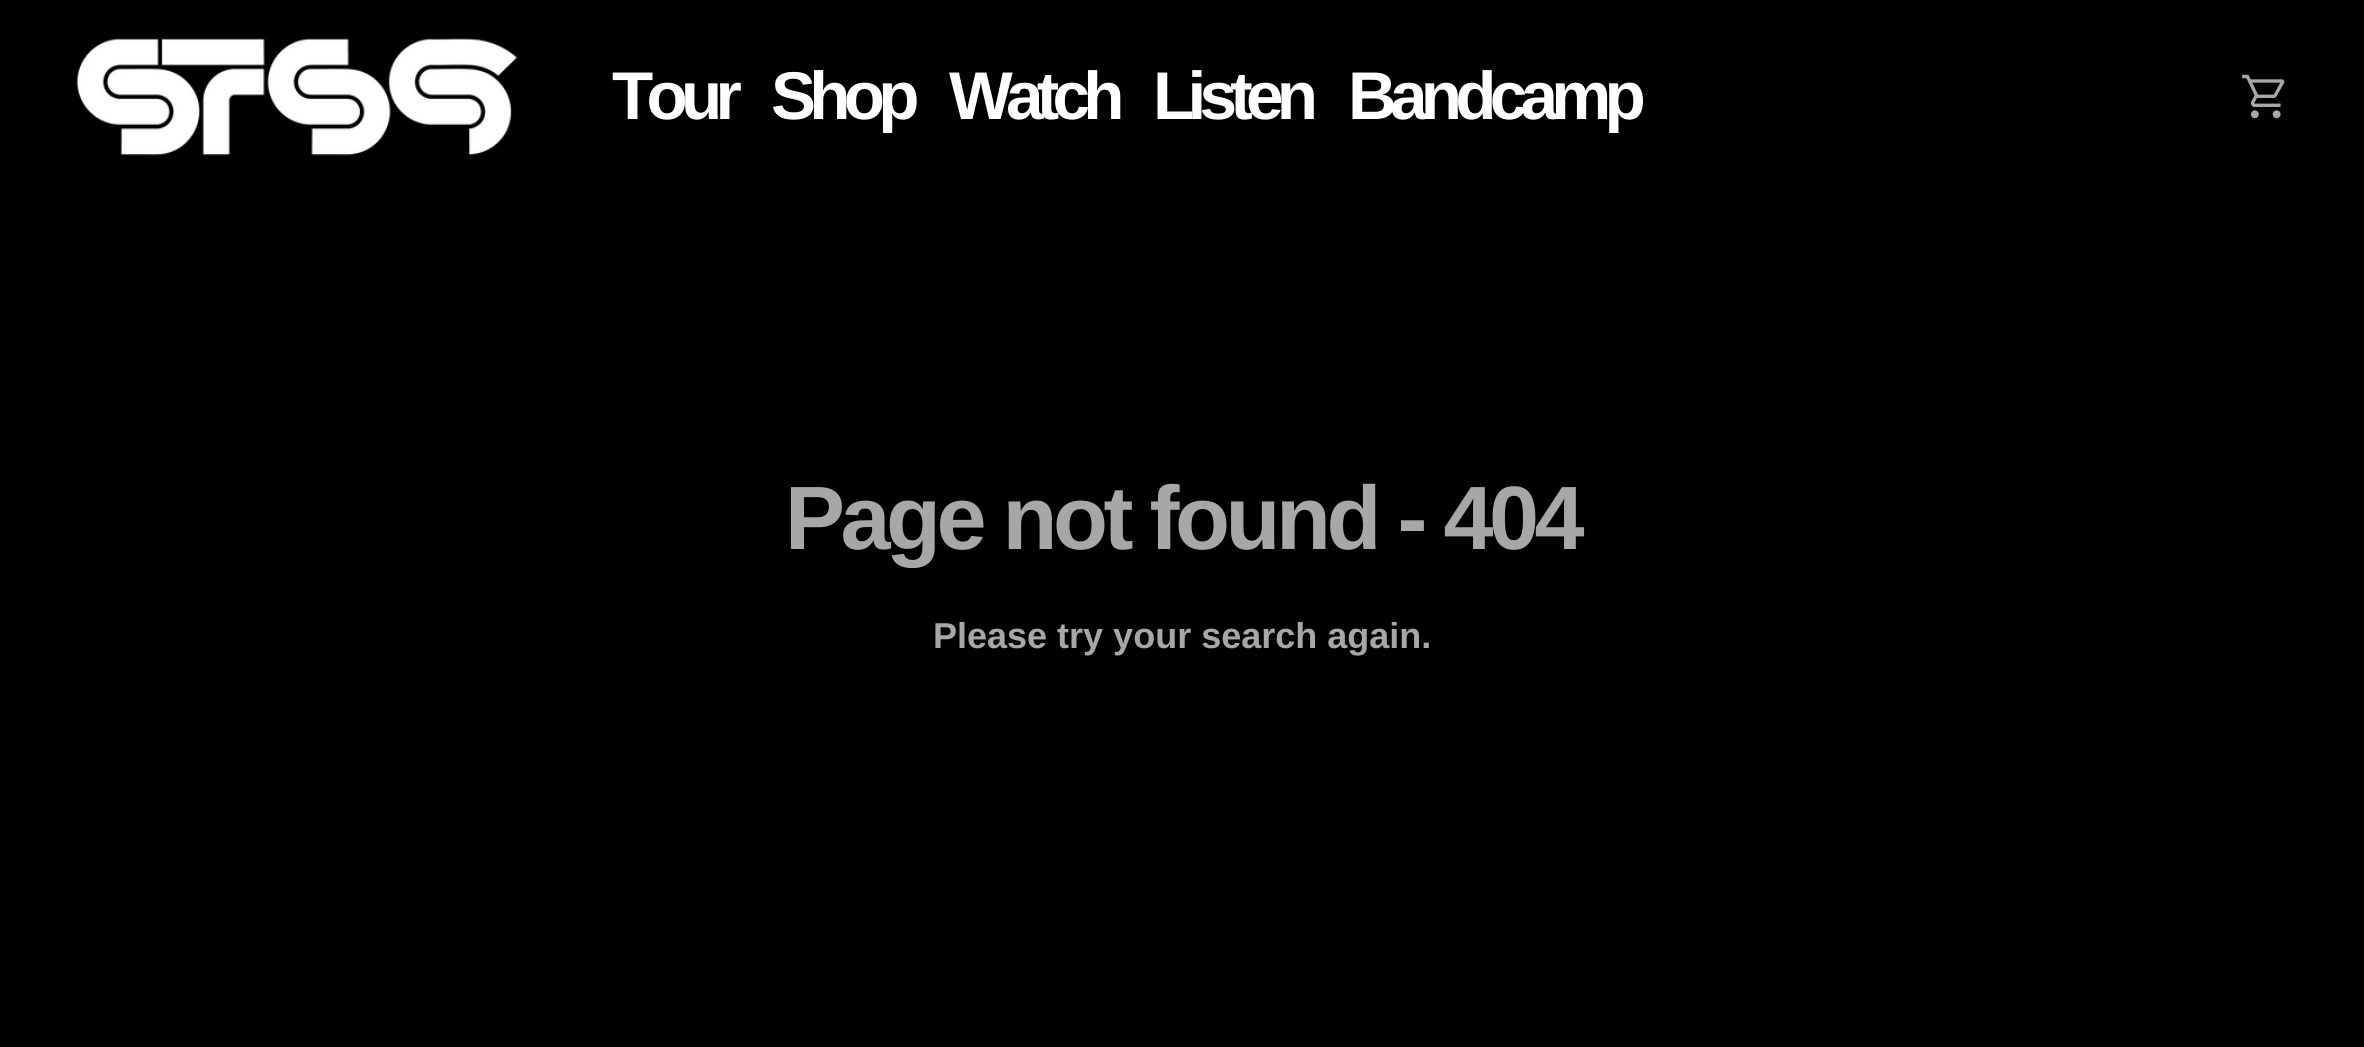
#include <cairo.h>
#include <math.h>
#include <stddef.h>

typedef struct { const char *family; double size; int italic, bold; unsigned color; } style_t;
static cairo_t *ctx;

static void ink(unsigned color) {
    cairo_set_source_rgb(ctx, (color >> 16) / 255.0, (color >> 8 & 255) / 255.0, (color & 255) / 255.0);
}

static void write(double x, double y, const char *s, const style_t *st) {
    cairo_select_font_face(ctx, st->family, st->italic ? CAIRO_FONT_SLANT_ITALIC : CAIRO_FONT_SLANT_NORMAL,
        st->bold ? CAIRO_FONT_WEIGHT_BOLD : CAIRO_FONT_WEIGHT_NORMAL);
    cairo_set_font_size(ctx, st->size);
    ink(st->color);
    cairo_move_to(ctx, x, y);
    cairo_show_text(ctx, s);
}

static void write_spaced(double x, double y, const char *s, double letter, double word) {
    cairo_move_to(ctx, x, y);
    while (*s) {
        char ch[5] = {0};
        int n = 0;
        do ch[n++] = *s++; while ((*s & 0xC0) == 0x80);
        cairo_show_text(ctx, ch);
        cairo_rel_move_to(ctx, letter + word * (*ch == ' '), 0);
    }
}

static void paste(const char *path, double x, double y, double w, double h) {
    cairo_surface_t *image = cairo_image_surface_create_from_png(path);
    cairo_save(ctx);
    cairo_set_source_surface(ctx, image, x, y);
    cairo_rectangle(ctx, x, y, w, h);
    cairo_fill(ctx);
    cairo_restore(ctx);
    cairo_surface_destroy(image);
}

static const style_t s1 = {"Liberation Sans", 36, 0, 1, 0xa7a7a7};

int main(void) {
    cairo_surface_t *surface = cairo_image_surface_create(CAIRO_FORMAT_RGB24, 2364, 1047);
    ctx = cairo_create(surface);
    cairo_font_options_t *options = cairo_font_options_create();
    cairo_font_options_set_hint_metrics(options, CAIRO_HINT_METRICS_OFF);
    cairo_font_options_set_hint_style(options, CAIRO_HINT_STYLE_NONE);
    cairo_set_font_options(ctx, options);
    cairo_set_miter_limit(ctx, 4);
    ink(0x000000);
    cairo_paint(ctx);
    paste("pic1.png", 76, 38, 441, 118);
    cairo_select_font_face(ctx, "Liberation Sans", CAIRO_FONT_SLANT_NORMAL, CAIRO_FONT_WEIGHT_BOLD);
    cairo_set_font_size(ctx, 67.5);
    ink(0xffffff);
    write_spaced(612, 119, "Tour", -6.75, 0);
    write_spaced(771, 119, "Shop", -6.75, 0);
    write_spaced(949, 119, "Watch", -6.75, 0);
    write_spaced(1153, 119, "Listen", -6.75, 0);
    write_spaced(1348, 119, "Bandcamp", -6.75, 0);
    paste("pic2.png", 2242, 74, 43, 45);
    cairo_set_font_size(ctx, 90);
    ink(0xa7a7a7);
    write_spaced(785, 549, "Page not found - 404", -4.5, 0);
    write(933, 648, "Please try your search again.", &s1);
    cairo_surface_write_to_png(surface, "screenshot.png");
    cairo_font_options_destroy(options);
    cairo_destroy(ctx);
    cairo_surface_destroy(surface);
    return 0;
}
